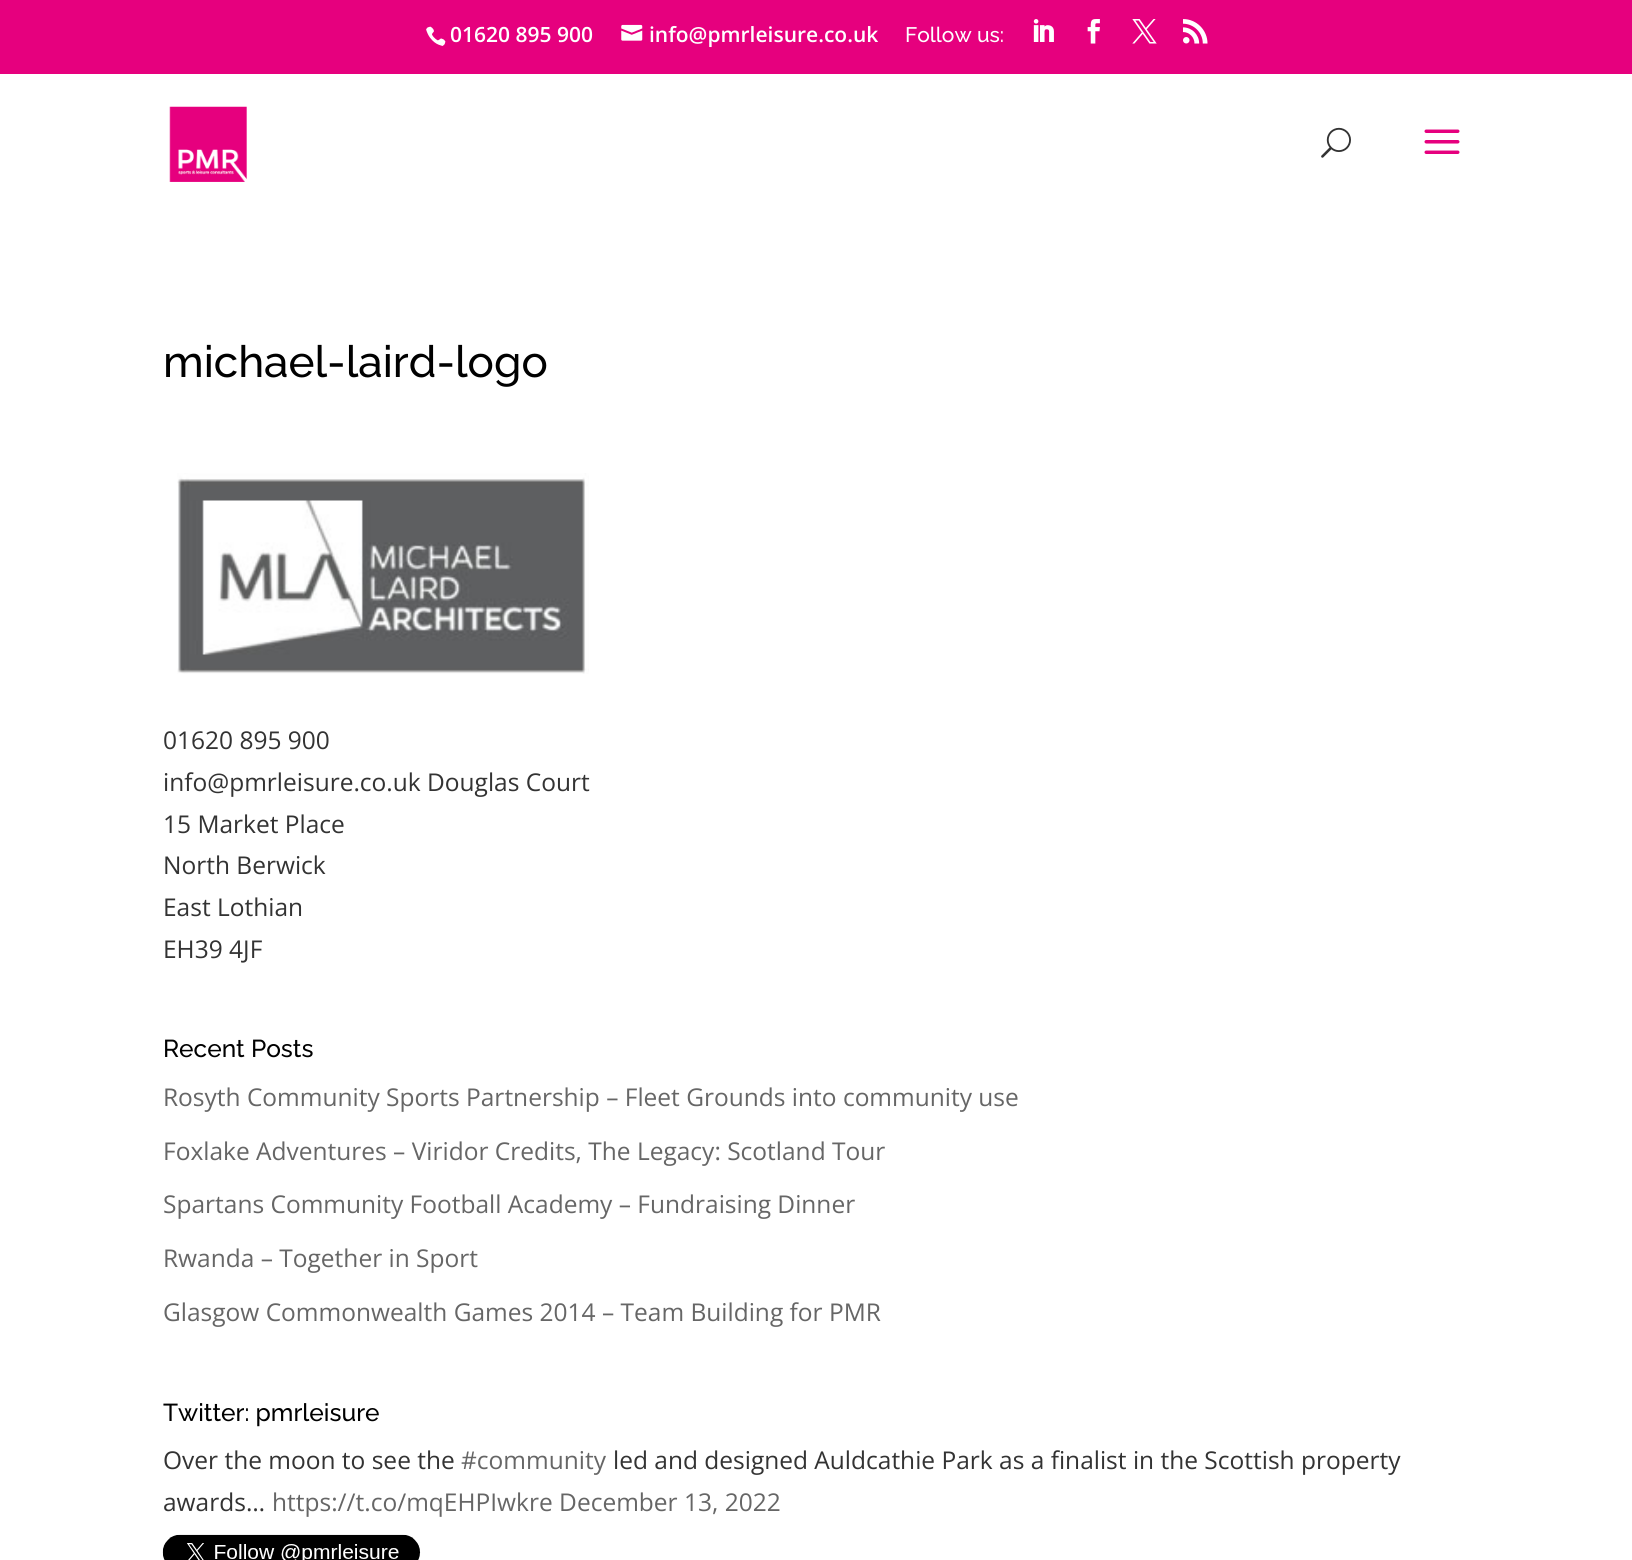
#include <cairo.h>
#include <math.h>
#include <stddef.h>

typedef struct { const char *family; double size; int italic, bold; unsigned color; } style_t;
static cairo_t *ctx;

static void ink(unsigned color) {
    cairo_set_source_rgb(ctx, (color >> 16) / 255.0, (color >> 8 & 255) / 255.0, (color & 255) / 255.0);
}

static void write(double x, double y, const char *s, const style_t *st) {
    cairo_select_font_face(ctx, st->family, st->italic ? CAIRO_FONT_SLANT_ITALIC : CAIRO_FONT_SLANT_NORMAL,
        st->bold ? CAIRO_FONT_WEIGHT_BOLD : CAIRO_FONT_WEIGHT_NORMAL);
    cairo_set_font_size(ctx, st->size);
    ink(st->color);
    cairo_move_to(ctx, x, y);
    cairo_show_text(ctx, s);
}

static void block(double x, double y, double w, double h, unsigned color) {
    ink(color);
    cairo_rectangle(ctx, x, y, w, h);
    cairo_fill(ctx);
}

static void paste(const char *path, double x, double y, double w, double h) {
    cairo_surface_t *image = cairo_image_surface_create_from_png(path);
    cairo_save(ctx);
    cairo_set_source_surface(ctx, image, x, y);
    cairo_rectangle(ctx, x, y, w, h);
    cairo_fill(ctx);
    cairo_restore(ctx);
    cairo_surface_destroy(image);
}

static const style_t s1 = {"Open Sans SemiBold", 21, 0, 0, 0xffffff};
static const style_t s2 = {"Raleway Medium", 21, 0, 0, 0xffffff};
static const style_t s3 = {"Raleway Medium", 44, 0, 0, 0x000000};
static const style_t s4 = {"Open Sans", 24.5, 0, 0, 0x333333};
static const style_t s5 = {"Raleway Medium", 24.5, 0, 0, 0x000000};
static const style_t s6 = {"Open Sans", 24.5, 0, 0, 0x666666};

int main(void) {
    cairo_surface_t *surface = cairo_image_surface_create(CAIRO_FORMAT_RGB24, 1632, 1560);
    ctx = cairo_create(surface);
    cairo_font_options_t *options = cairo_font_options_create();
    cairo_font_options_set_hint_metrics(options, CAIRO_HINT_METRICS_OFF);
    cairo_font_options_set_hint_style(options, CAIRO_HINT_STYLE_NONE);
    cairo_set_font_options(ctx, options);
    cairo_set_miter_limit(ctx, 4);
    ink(0xffffff);
    cairo_paint(ctx);
    block(0, 0, 1632, 74, 0xe6007e);
    paste("pic1.png", 426, 26, 20, 20);
    write(450, 42, "01620 895 900", &s1);
    paste("pic2.png", 621, 24, 22, 17);
    write(649, 42, "info@pmrleisure.co.uk", &s1);
    write(905, 42, "Follow us:", &s2);
    paste("pic3.png", 1033, 19, 21, 23);
    paste("pic4.png", 1087, 19, 13, 25);
    paste("pic5.png", 1132, 19, 25, 25);
    paste("pic6.png", 1183, 19, 25, 25);
    paste("pic7.png", 169, 106, 78, 76);
    paste("pic8.png", 1321, 127, 30, 31);
    paste("pic9.png", 1424, 129, 36, 25);
    write(163, 377, "michael-laird-logo", &s3);
    paste("pic10.png", 177, 473, 412, 201);
    write(163, 749, "01620 895 900", &s4);
    write(163, 791, "info@pmrleisure.co.uk Douglas Court", &s4);
    write(163, 833, "15 Market Place", &s4);
    write(163, 874, "North Berwick", &s4);
    write(163, 916, "East Lothian", &s4);
    write(163, 958, "EH39 4JF", &s4);
    write(163, 1057, "Recent Posts", &s5);
    write(163, 1106, "Rosyth Community Sports Partnership – Fleet Grounds into community use", &s6);
    write(163, 1160, "Foxlake Adventures – Viridor Credits, The Legacy: Scotland Tour", &s6);
    write(163, 1213, "Spartans Community Football Academy – Fundraising Dinner", &s6);
    write(163, 1267, "Rwanda – Together in Sport", &s6);
    write(163, 1321, "Glasgow Commonwealth Games 2014 – Team Building for PMR", &s6);
    write(163, 1421, "Twitter: pmrleisure", &s5);
    write(163, 1469, "Over the moon to see the", &s4);
    write(461, 1469, "#community", &s6);
    write(613, 1469, "led and designed Auldcathie Park as a finalist in the Scottish property", &s4);
    write(163, 1511, "awards…", &s4);
    write(272, 1511, "https://t.co/mqEHPIwkre December 13, 2022", &s6);
    paste("pic11.png", 162, 1534, 259, 26);
    cairo_surface_write_to_png(surface, "screenshot.png");
    cairo_font_options_destroy(options);
    cairo_destroy(ctx);
    cairo_surface_destroy(surface);
    return 0;
}
